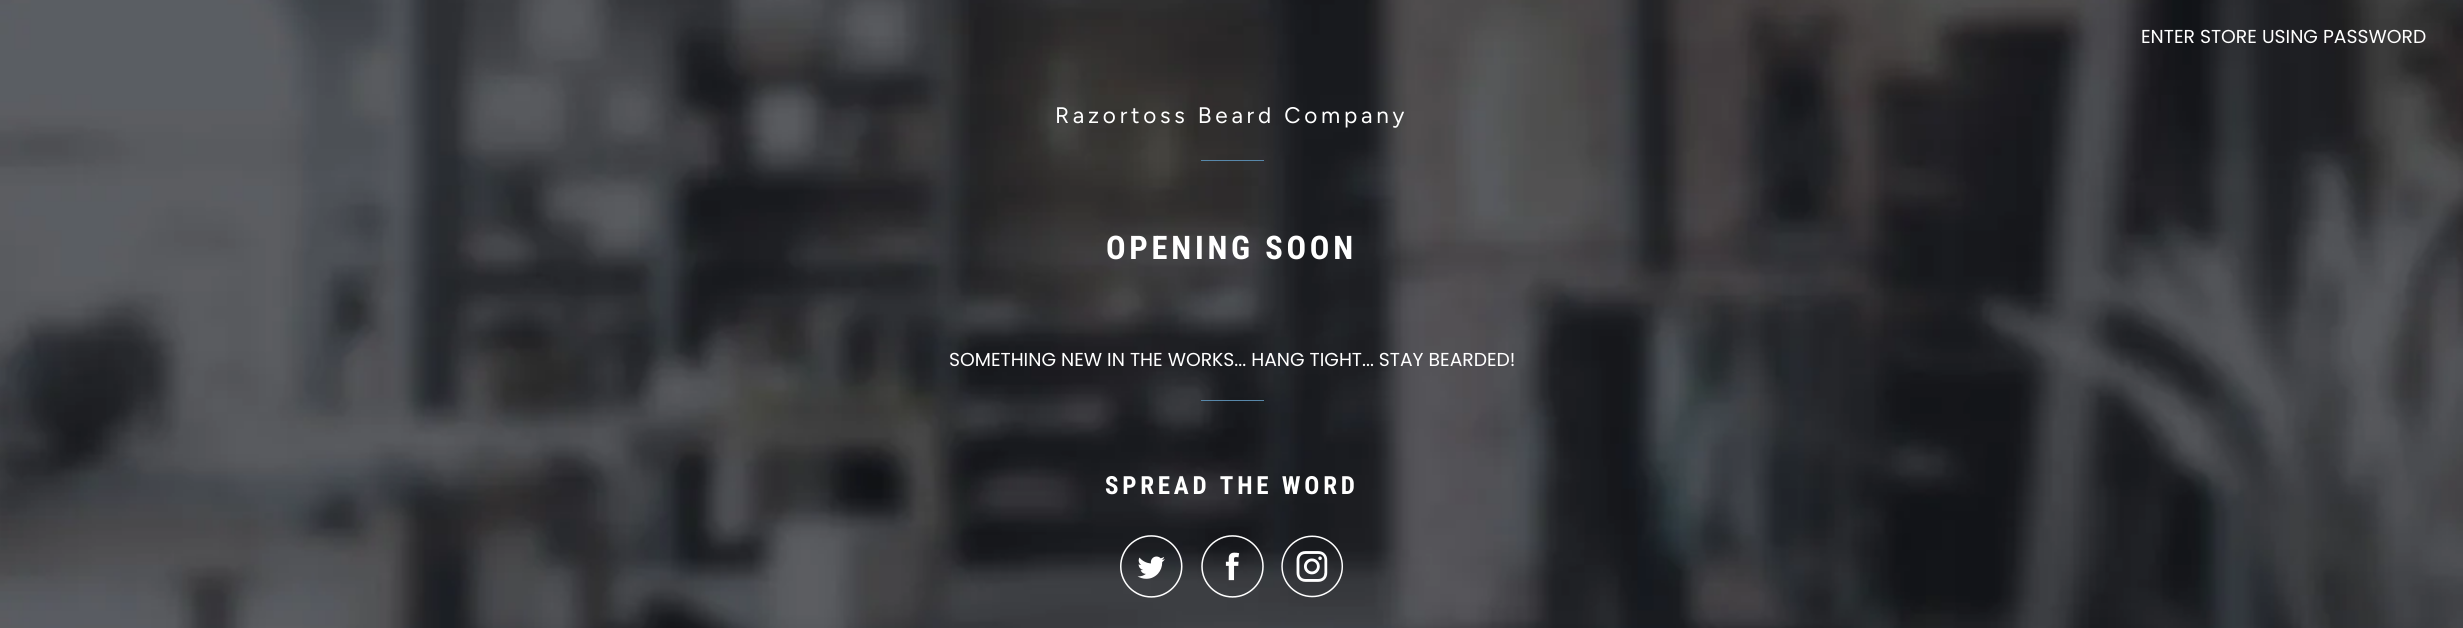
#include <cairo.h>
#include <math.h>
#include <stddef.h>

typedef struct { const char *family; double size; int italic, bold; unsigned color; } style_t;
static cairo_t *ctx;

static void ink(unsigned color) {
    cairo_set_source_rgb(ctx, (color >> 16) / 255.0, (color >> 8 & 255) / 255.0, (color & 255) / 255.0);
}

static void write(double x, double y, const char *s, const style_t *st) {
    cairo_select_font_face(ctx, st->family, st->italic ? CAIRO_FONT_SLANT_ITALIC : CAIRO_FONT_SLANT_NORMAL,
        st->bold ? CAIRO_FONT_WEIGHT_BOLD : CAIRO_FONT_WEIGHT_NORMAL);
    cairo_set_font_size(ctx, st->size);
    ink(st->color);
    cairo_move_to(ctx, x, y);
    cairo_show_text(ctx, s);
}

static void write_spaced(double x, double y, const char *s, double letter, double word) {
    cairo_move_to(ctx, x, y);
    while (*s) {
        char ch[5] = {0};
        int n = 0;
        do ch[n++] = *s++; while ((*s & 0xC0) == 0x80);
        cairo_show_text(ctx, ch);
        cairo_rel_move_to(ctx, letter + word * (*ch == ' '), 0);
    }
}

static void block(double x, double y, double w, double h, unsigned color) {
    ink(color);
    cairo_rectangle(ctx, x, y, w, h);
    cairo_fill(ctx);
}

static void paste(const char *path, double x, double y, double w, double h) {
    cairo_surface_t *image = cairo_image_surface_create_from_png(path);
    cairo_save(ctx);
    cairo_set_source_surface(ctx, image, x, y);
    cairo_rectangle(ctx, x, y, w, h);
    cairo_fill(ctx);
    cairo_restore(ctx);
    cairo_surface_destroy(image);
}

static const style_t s1 = {"Poppins", 18.75, 0, 0, 0xffffff};

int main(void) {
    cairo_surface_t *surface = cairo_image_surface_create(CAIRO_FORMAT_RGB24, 2463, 628);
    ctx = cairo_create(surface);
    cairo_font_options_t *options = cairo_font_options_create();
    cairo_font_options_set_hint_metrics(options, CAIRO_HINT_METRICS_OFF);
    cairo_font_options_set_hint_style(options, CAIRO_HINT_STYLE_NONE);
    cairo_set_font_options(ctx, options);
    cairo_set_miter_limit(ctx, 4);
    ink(0xffffff);
    cairo_paint(ctx);
    paste("pic1.png", 0, 0, 2463, 628);
    write(2141, 43, "ENTER STORE USING PASSWORD", &s1);
    cairo_select_font_face(ctx, "Figtree", CAIRO_FONT_SLANT_NORMAL, CAIRO_FONT_WEIGHT_NORMAL);
    cairo_set_font_size(ctx, 22.5);
    write_spaced(1055, 123, "Razortoss Beard Company", 3.75, 0);
    block(1201, 160, 63, 1, 0x5888aa);
    cairo_select_font_face(ctx, "Roboto Condensed", CAIRO_FONT_SLANT_NORMAL, CAIRO_FONT_WEIGHT_BOLD);
    cairo_set_font_size(ctx, 32.5);
    ink(0xffffff);
    write_spaced(1106, 259, "OPENING SOON", 3.75, 0);
    write(949, 366, "SOMETHING NEW IN THE WORKS... HANG TIGHT... STAY BEARDED!", &s1);
    block(1201, 400, 63, 1, 0x5888aa);
    cairo_select_font_face(ctx, "Roboto Condensed", CAIRO_FONT_SLANT_NORMAL, CAIRO_FONT_WEIGHT_BOLD);
    cairo_set_font_size(ctx, 25);
    ink(0xffffff);
    write_spaced(1105, 494, "SPREAD THE WORD", 3.75, 0);
    paste("pic2.png", 1120, 535, 63, 63);
    paste("pic3.png", 1201, 535, 63, 63);
    paste("pic4.png", 1281, 535, 62, 63);
    cairo_surface_write_to_png(surface, "screenshot.png");
    cairo_font_options_destroy(options);
    cairo_destroy(ctx);
    cairo_surface_destroy(surface);
    return 0;
}
